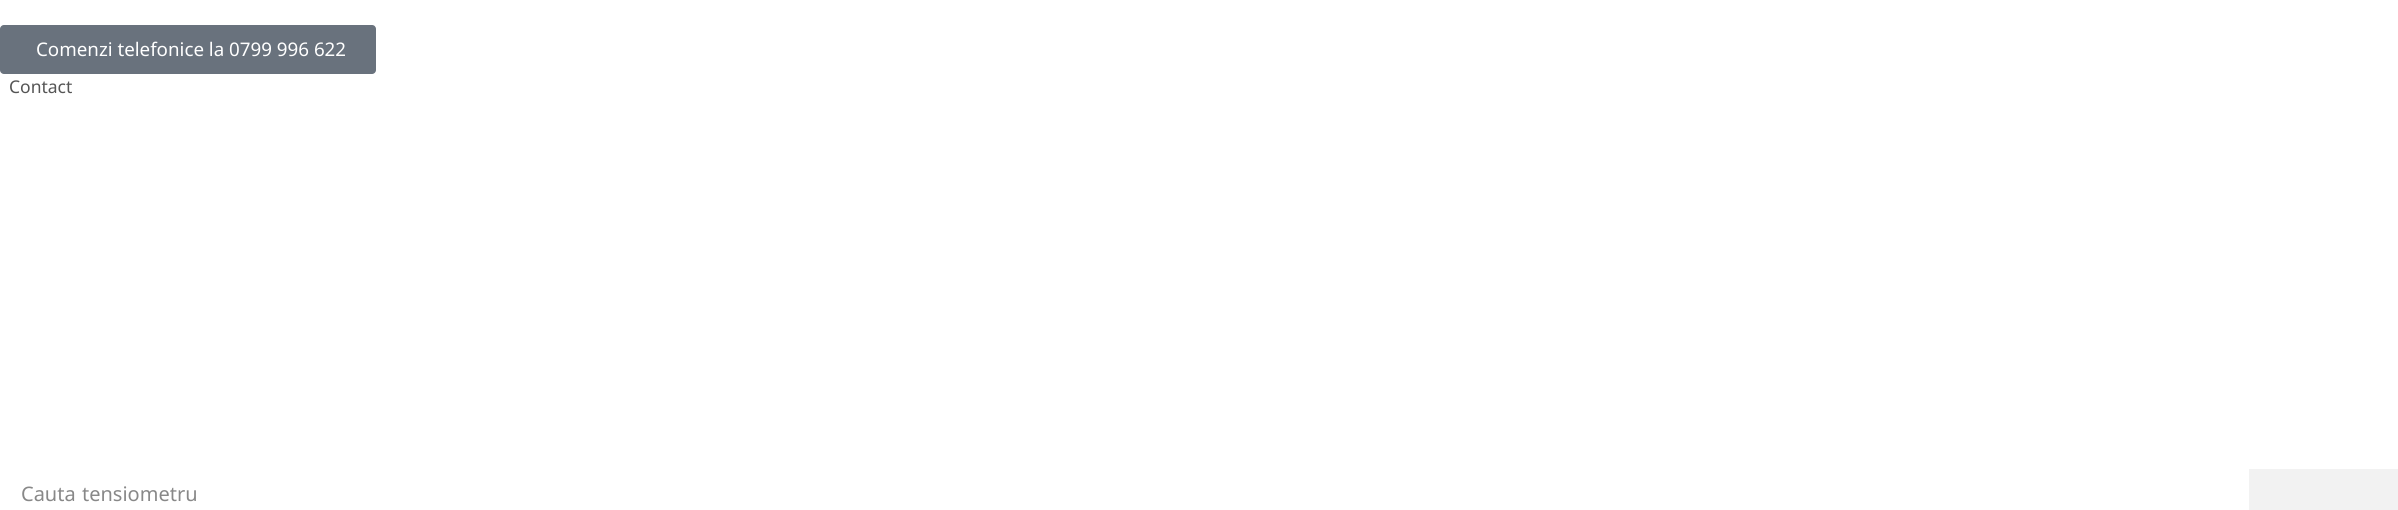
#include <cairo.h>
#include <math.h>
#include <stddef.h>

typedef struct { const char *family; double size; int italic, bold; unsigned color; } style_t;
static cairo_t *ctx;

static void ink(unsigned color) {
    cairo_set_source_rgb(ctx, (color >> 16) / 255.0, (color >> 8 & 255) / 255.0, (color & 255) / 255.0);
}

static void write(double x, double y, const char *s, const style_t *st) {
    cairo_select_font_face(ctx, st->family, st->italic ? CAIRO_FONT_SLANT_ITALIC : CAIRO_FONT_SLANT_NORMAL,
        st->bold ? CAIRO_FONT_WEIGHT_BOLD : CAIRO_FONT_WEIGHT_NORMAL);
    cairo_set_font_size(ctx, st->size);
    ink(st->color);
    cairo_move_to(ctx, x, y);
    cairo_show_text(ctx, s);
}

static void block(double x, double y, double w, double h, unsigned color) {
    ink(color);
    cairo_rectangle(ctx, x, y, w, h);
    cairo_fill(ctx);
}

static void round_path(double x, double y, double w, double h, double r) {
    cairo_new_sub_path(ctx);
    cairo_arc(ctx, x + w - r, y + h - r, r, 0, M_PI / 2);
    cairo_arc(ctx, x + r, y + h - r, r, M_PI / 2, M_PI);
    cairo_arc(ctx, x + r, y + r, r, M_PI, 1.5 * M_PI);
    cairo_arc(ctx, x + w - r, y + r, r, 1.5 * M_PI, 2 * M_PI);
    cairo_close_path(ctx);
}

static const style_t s1 = {"Noto Sans", 18.75, 0, 0, 0xffffff};
static const style_t s2 = {"Noto Sans", 17.5, 0, 0, 0x555555};
static const style_t s3 = {"Noto Sans", 20, 0, 0, 0x888888};

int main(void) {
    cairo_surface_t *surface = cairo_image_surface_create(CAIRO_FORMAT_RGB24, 2398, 510);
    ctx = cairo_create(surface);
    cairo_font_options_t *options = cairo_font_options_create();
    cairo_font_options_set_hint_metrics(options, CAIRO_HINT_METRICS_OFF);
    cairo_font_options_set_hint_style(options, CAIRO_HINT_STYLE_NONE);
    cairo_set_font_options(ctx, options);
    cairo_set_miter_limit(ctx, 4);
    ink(0xffffff);
    cairo_paint(ctx);
    ink(0x69727d);
    round_path(0, 25, 376, 49, 4);
    cairo_fill(ctx);
    write(36, 56, "Comenzi telefonice la 0799 996 622", &s1);
    write(9, 93, "Contact", &s2);
    write(21, 501, "Cauta", &s3);
    write(82, 501, "tensiometru", &s3);
    block(2249, 469, 149, 41, 0xf2f2f2);
    cairo_surface_write_to_png(surface, "screenshot.png");
    cairo_font_options_destroy(options);
    cairo_destroy(ctx);
    cairo_surface_destroy(surface);
    return 0;
}
